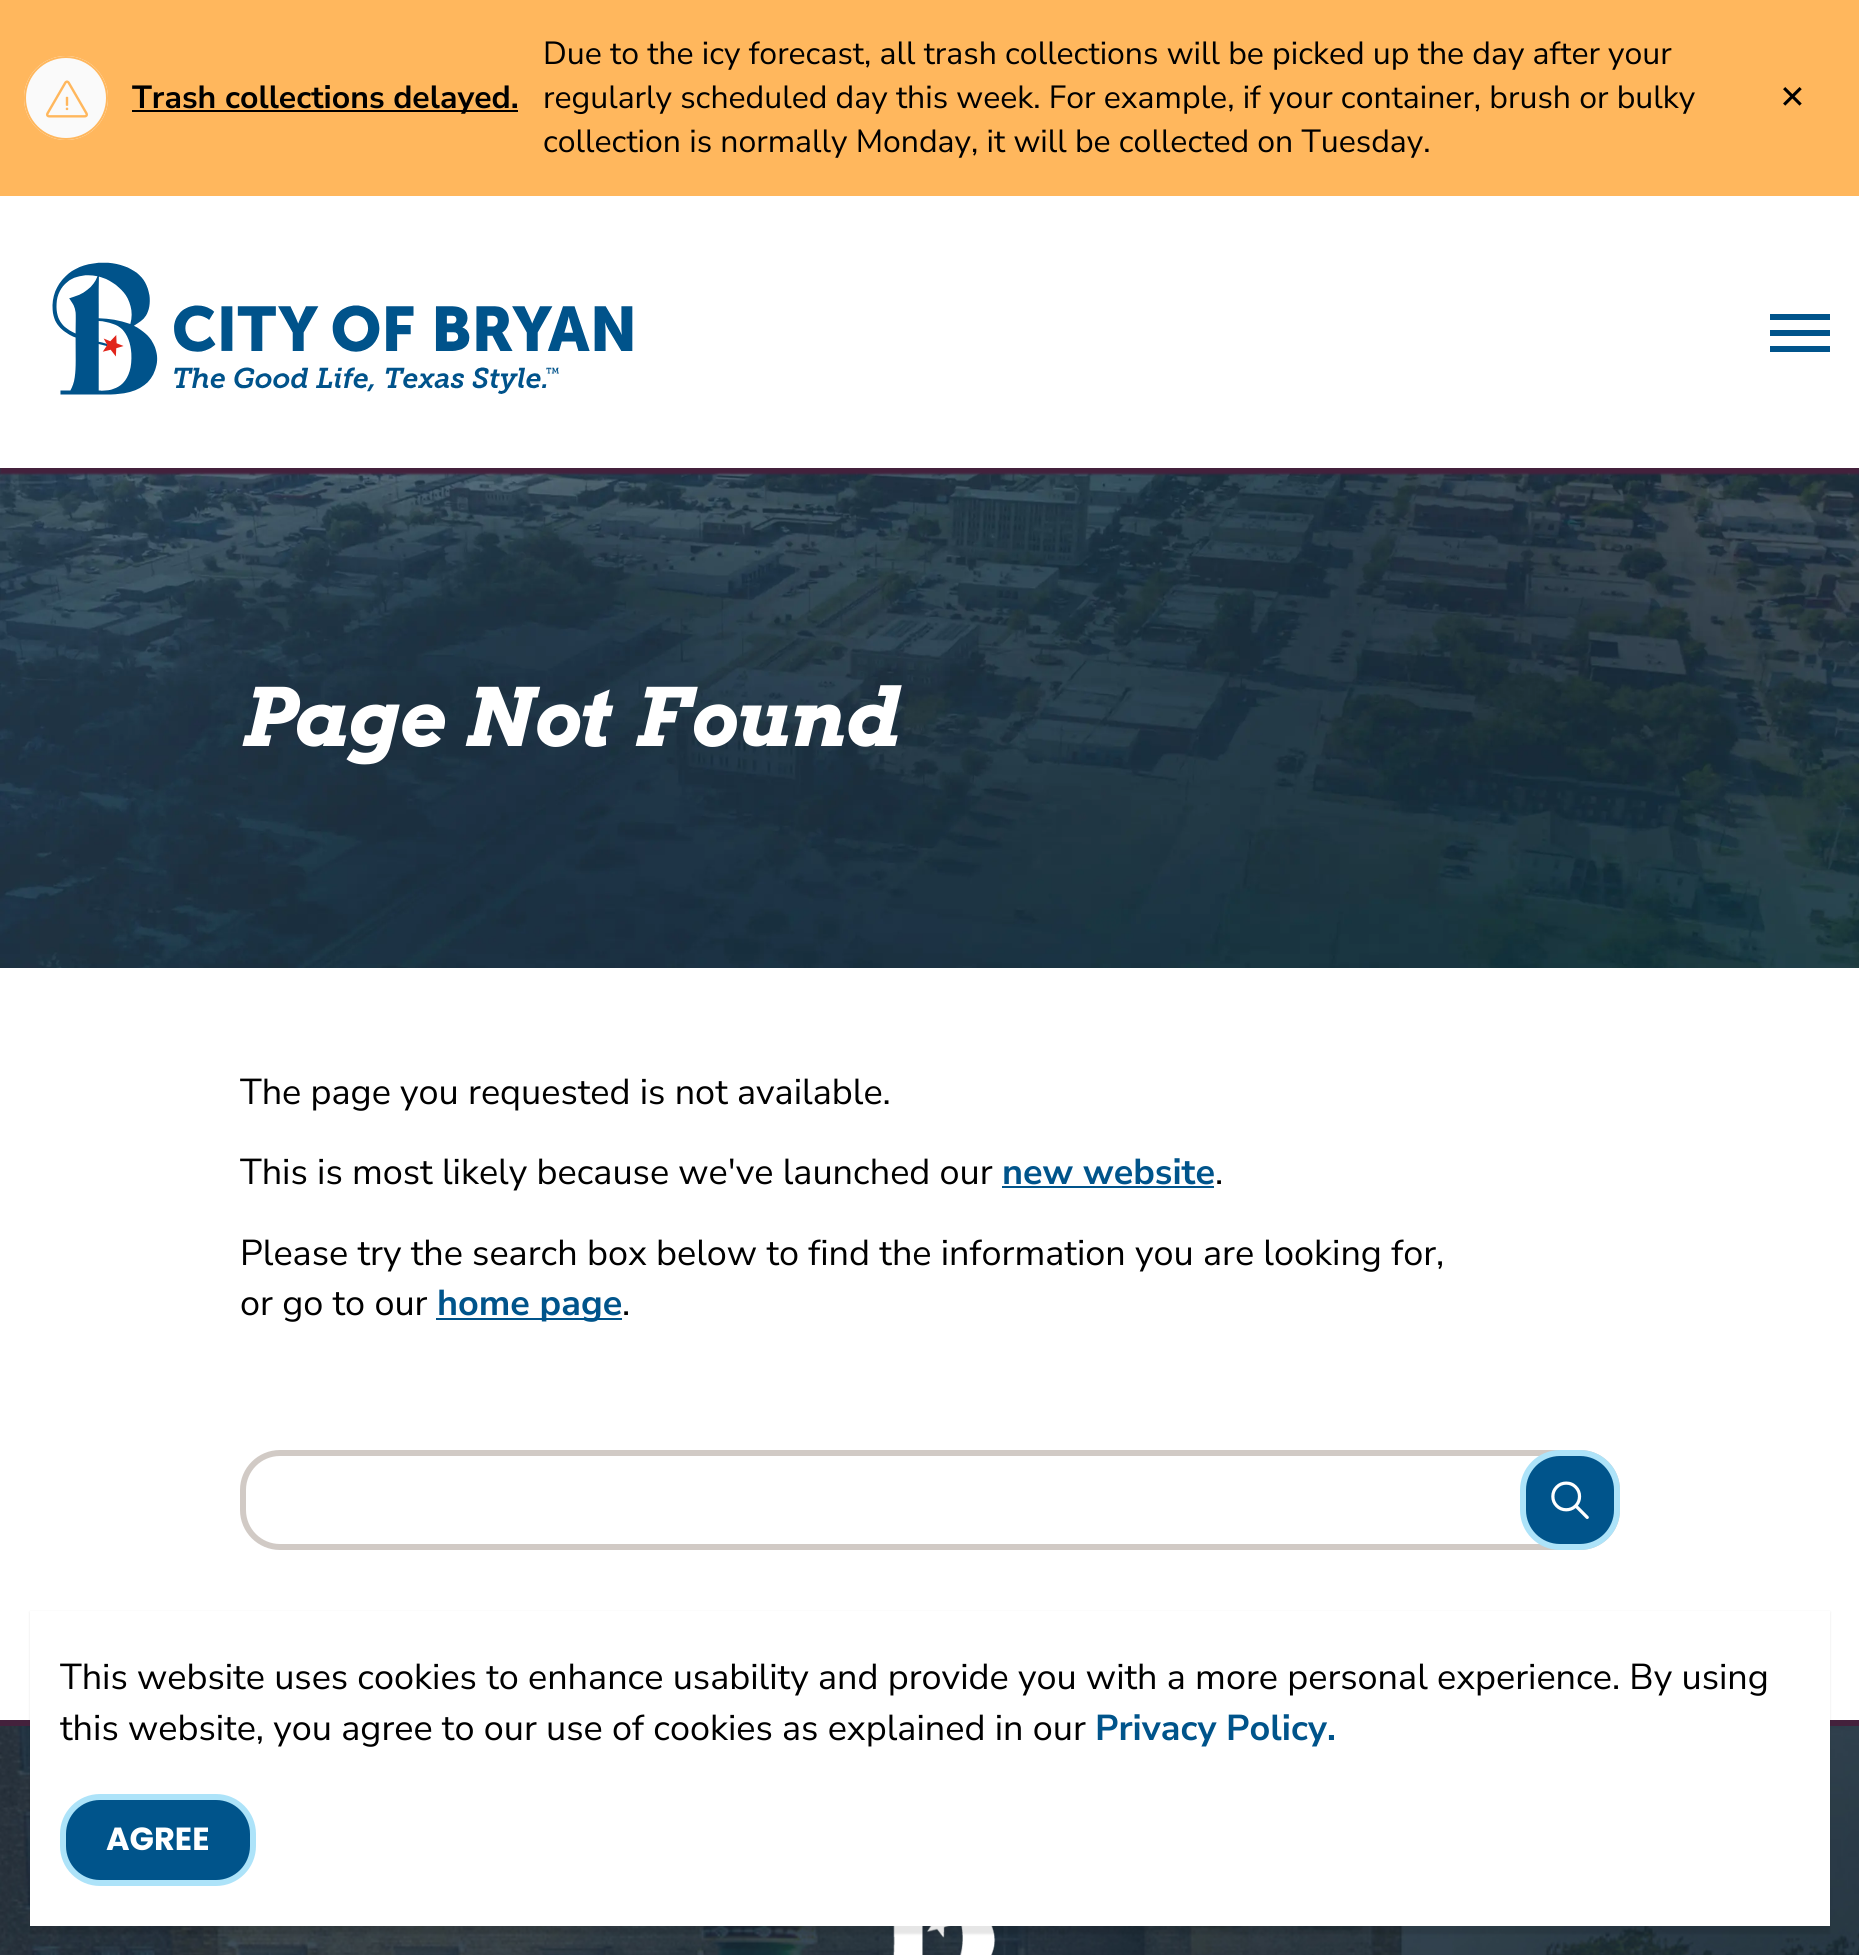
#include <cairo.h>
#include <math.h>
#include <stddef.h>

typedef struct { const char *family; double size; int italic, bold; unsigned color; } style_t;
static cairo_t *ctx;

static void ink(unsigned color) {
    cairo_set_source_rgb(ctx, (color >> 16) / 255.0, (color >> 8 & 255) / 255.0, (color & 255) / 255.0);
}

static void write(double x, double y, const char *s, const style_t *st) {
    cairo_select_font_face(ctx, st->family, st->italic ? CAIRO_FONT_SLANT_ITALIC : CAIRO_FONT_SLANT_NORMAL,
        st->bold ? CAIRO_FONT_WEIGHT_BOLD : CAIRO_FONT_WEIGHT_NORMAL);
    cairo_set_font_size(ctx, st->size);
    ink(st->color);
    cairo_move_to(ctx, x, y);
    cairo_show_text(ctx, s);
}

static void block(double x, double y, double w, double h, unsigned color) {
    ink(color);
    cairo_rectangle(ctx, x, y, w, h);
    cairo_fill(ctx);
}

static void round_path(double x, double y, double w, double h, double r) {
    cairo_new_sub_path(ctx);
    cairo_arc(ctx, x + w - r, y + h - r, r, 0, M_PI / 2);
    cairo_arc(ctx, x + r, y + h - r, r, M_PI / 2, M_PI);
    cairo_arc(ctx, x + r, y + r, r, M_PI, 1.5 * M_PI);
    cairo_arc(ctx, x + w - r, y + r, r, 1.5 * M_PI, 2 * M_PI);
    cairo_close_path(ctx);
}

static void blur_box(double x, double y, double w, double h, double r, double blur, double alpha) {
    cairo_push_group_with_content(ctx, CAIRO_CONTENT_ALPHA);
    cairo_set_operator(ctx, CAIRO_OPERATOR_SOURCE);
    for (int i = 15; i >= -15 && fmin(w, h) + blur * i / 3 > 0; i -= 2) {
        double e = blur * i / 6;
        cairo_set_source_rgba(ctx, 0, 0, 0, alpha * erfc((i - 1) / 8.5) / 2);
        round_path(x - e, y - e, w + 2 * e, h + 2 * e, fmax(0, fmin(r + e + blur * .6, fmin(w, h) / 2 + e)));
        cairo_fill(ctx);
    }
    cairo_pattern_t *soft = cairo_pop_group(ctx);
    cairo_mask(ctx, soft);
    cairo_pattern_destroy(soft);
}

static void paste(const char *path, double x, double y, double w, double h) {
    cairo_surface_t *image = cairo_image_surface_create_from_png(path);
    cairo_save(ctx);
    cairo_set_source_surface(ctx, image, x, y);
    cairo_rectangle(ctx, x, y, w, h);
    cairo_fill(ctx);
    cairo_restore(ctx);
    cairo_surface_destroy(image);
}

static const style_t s1 = {"Nunito Sans", 32, 0, 1, 0x000000};
static const style_t s2 = {"Nunito Sans", 32, 0, 0, 0x000000};
static const style_t s3 = {"DejaVu Sans", 32, 0, 0, 0x000000};
static const style_t s4 = {"Arvo", 80, 1, 1, 0xffffff};
static const style_t s5 = {"Nunito Sans", 36, 0, 0, 0x000000};
static const style_t s6 = {"Nunito Sans", 36, 0, 1, 0x00548b};
static const style_t s7 = {"Poppins", 32, 0, 1, 0xffffff};

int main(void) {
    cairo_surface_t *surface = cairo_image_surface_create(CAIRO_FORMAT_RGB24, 1859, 1955);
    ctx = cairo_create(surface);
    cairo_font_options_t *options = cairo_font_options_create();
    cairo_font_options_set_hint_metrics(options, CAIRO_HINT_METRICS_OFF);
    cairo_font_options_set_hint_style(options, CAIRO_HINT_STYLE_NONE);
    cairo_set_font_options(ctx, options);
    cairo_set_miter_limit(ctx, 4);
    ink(0xffffff);
    cairo_paint(ctx);
    block(0, 0, 1859, 196, 0xffb75d);
    ink(0xfafafa);
    cairo_arc(ctx, 66, 98, 42, 0, 2 * M_PI);
    cairo_fill(ctx);
    paste("pic1.png", 46, 80, 42, 38);
    cairo_arc(ctx, 66, 98, 41, 0, 2 * M_PI);
    ink(0xffb75d);
    cairo_stroke(ctx);
    block(132, 110, 386, 2, 0x000000);
    write(132, 108, "Trash collections delayed.", &s1);
    write(543, 64, "Due to the icy forecast, all trash collections will be picked up the day after your", &s2);
    write(543, 108, "regularly scheduled day this week. For example, if your container, brush or bulky", &s2);
    write(543, 152, "collection is normally Monday, it will be collected on Tuesday.", &s2);
    write(1779, 108, "✕", &s3);
    paste("pic3.png", 0, 468, 1859, 500);
    cairo_save(ctx);
    cairo_rectangle(ctx, 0, 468, 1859, 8);
    cairo_clip(ctx);
    ink(0x44213c);
    blur_box(0, 202, 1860, 272, 0, 1, 1);
    cairo_restore(ctx);
    paste("pic2.png", 52, 262, 581, 133);
    block(1770, 330, 60, 6, 0x00548b);
    block(1770, 314, 60, 6, 0x00548b);
    block(1770, 346, 60, 6, 0x00548b);
    write(240, 746, "Page Not Found", &s4);
    write(240, 1104, "The page you requested is not available.", &s5);
    write(240, 1184, "This is most likely because we've launched our", &s5);
    write(1002, 1184, "new website", &s6);
    block(1002, 1186, 212, 2, 0x00548b);
    write(1215, 1184, ".", &s5);
    write(240, 1265, "Please try the search box below to find the information you are looking for,", &s5);
    write(240, 1315, "or go to our", &s5);
    block(436, 1318, 186, 2, 0x00548b);
    write(437, 1315, "home page", &s6);
    write(622, 1315, ".", &s5);
    round_path(243, 1453, 1374, 94, 37);
    ink(0xd1cac5);
    cairo_set_line_width(ctx, 6);
    cairo_stroke(ctx);
    ink(0x00548b);
    round_path(1523, 1453, 94, 94, 37);
    cairo_fill_preserve(ctx);
    ink(0xade3f9);
    cairo_stroke(ctx);
    paste("pic4.png", 1551, 1481, 38, 38);
    block(0, 1720, 1859, 6, 0x44213c);
    paste("pic5.png", 0, 1726, 1859, 229);
    paste("pic6.png", 893, 1926, 103, 29);
    ink(0x000000);
    blur_box(30, 1612, 1800, 322, 0, 1, 0.1);
    block(30, 1611, 1800, 315, 0xffffff);
    write(60, 1689, "This website uses cookies to enhance usability and provide you with a more personal experience. By using", &s5);
    write(60, 1740, "this website, you agree to our use of cookies as explained in our", &s5);
    write(1095, 1740, "Privacy Policy.", &s6);
    round_path(63, 1797, 190, 86, 37);
    cairo_fill_preserve(ctx);
    ink(0xade3f9);
    cairo_stroke(ctx);
    write(106, 1850, "AGREE", &s7);
    cairo_surface_write_to_png(surface, "screenshot.png");
    cairo_font_options_destroy(options);
    cairo_destroy(ctx);
    cairo_surface_destroy(surface);
    return 0;
}
